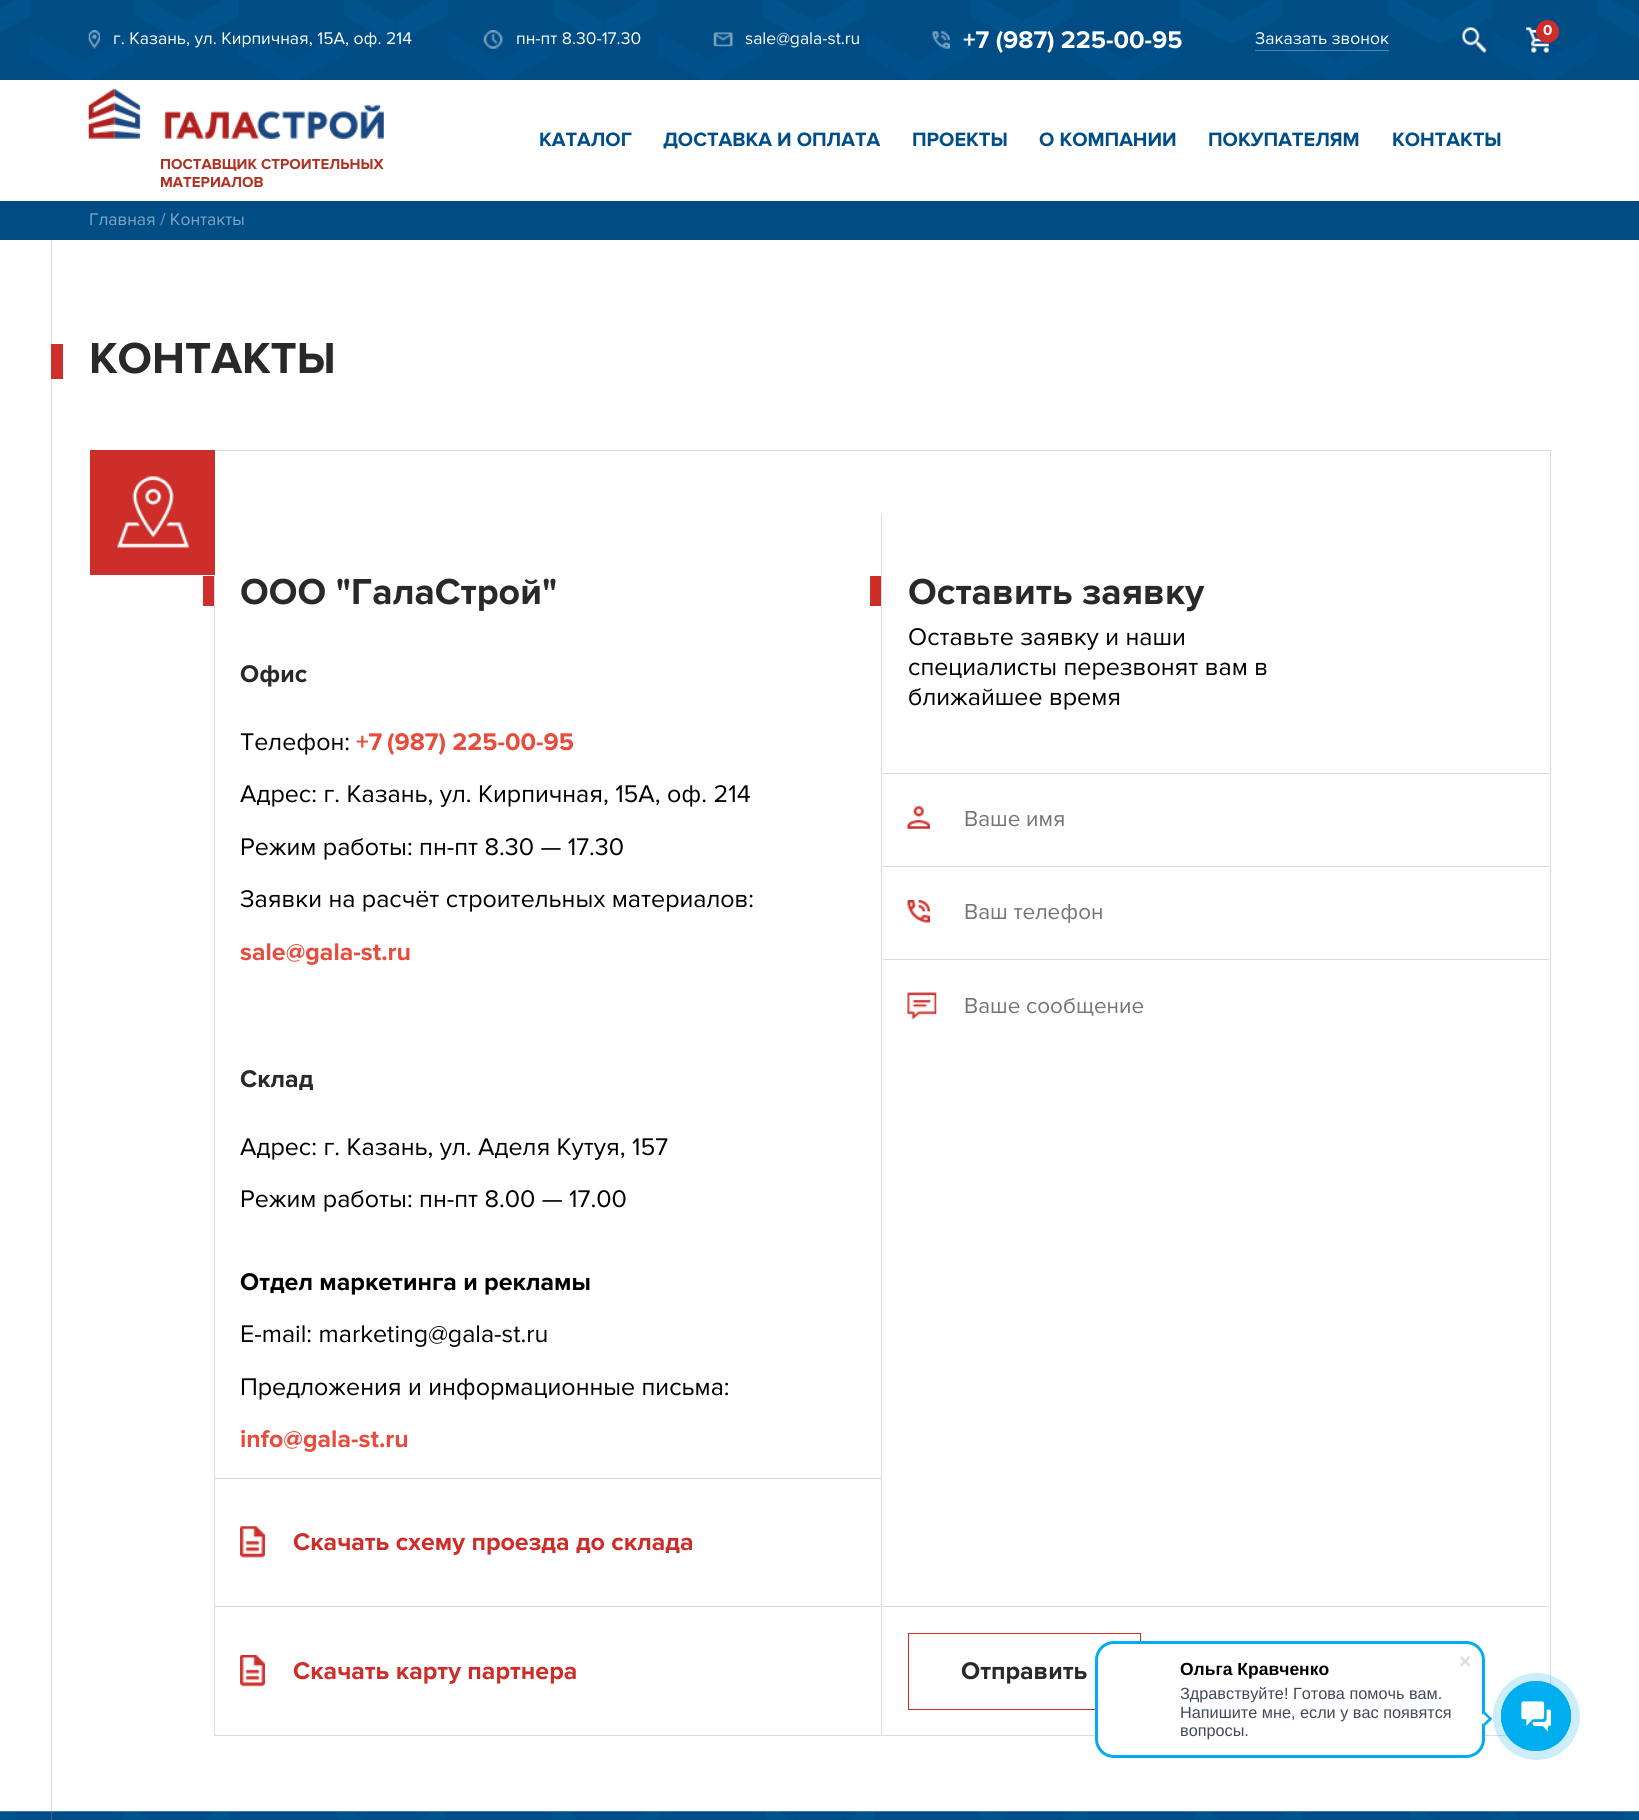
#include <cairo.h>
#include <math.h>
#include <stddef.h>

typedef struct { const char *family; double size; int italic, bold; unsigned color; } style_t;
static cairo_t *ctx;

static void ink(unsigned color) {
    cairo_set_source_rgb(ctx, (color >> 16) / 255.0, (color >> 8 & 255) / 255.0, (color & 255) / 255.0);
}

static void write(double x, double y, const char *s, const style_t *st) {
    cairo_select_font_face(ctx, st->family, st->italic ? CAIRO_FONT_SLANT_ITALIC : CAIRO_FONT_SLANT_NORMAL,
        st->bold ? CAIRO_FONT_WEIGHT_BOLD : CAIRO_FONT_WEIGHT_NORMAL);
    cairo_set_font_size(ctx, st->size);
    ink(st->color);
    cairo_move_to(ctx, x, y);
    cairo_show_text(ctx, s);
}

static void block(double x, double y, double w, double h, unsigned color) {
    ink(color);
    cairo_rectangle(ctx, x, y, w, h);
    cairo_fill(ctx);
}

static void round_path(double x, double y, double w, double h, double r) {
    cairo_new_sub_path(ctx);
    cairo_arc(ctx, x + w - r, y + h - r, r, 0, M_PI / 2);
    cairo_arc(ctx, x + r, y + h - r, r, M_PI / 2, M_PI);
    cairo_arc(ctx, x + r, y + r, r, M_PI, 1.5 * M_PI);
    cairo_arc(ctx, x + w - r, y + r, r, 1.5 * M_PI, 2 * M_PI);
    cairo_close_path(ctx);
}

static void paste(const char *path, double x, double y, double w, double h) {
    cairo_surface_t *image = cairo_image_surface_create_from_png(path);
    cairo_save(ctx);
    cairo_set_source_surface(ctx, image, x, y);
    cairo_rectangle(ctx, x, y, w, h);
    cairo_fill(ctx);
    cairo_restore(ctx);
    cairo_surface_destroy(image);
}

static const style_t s1 = {"Proxima Nova", 17.5, 0, 0, 0xffffff};
static const style_t s2 = {"Proxima Nova", 25, 0, 1, 0xffffff};
static const style_t s3 = {"Proxima Nova", 15, 0, 1, 0xffffff};
static const style_t s4 = {"Proxima Nova", 20, 0, 1, 0x004d87};
static const style_t s5 = {"Proxima Nova", 15, 0, 1, 0xb03223};
static const style_t s6 = {"Proxima Nova", 17.5, 0, 0, 0x80a6c3};
static const style_t s7 = {"Proxima Nova", 45, 0, 1, 0x292929};
static const style_t s8 = {"Proxima Nova", 37.5, 0, 1, 0x292929};
static const style_t s9 = {"Proxima Nova", 25, 0, 1, 0x292929};
static const style_t s10 = {"Proxima Nova", 25, 0, 0, 0x000000};
static const style_t s11 = {"Proxima Nova", 25, 0, 1, 0xe74c3c};
static const style_t s12 = {"Proxima Nova", 25, 0, 1, 0x000000};
static const style_t s13 = {"Proxima Nova", 25, 0, 1, 0xcd2e2a};
static const style_t s14 = {"Proxima Nova", 22.5, 0, 0, 0x757575};
static const style_t s15 = {"Liberation Sans", 17.5, 0, 1, 0x000000};
static const style_t s16 = {"Liberation Sans", 16.25, 0, 0, 0x424956};

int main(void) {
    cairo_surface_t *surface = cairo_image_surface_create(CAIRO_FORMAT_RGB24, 1639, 1820);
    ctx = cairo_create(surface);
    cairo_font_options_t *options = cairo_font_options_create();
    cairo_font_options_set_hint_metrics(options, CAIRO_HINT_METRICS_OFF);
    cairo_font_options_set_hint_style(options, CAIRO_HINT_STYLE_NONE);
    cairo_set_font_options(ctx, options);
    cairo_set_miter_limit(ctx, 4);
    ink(0xffffff);
    cairo_paint(ctx);
    paste("pic1.png", 0, 0, 1639, 80);
    paste("pic2.png", 88, 30, 12, 19);
    write(113, 44, "г. Казань, ул. Кирпичная, 15А, оф. 214", &s1);
    paste("pic3.png", 483, 30, 20, 19);
    write(516, 44, "пн-пт 8.30-17.30", &s1);
    paste("pic4.png", 713, 32, 20, 15);
    write(745, 44, "sale@gala-st.ru", &s1);
    paste("pic5.png", 932, 31, 18, 18);
    write(963, 48, "+7 (987) 225-00-95", &s2);
    cairo_set_source_rgba(ctx, 1, 1, 1, 0.3);
    cairo_rectangle(ctx, 1255, 50, 134, 1);
    cairo_fill(ctx);
    write(1255, 44, "Заказать звонок", &s1);
    paste("pic6.png", 1462, 27, 25, 26);
    paste("pic7.png", 1526, 27, 23, 26);
    ink(0xcd2e2a);
    cairo_arc(ctx, 1547.5, 31.5, 11.5, 0, 2 * M_PI);
    cairo_fill(ctx);
    write(1543, 35, "0", &s3);
    write(539, 146, "КАТАЛОГ", &s4);
    write(663, 146, "ДОСТАВКА И ОПЛАТА", &s4);
    write(912, 146, "ПРОЕКТЫ", &s4);
    write(1039, 146, "О КОМПАНИИ", &s4);
    write(1208, 146, "ПОКУПАТЕЛЯМ", &s4);
    write(1392, 146, "КОНТАКТЫ", &s4);
    paste("pic8.png", 88, 88, 296, 51);
    write(160, 169, "ПОСТАВЩИК СТРОИТЕЛЬНЫХ", &s5);
    write(160, 187, "МАТЕРИАЛОВ", &s5);
    block(0, 201, 1639, 39, 0x004d86);
    write(89, 225, "Главная / Контакты", &s6);
    block(51, 240, 1, 1571, 0xd8dce5);
    block(51, 344, 12, 35, 0xcd2e2a);
    write(89, 373, "КОНТАКТЫ", &s7);
    cairo_rectangle(ctx, 214.5, 450.5, 1336, 1285);
    ink(0xd8dce5);
    cairo_set_line_width(ctx, 1);
    cairo_stroke(ctx);
    block(90, 450, 125, 125, 0xcd2e2a);
    paste("pic9.png", 117, 476, 72, 72);
    block(881, 514, 1, 1221, 0xd8dce5);
    block(203, 576, 11, 30, 0xcd2e2a);
    write(240, 604, "ООО \"ГалаСтрой\"", &s8);
    write(240, 682, "Офис", &s9);
    write(240, 750, "Телефон:", &s10);
    write(356, 750, "+7", &s11);
    write(387, 750, "(987) 225-00-95", &s11);
    write(240, 802, "Адрес: г. Казань, ул. Кирпичная, 15А, оф. 214", &s10);
    write(240, 855, "Режим работы: пн-пт 8.30 — 17.30", &s10);
    write(240, 907, "Заявки на расчёт строительных материалов:", &s10);
    write(240, 960, "sale@gala-st.ru", &s11);
    write(240, 1087, "Склад", &s9);
    write(240, 1155, "Адрес: г. Казань, ул. Аделя Кутуя, 157", &s10);
    write(240, 1207, "Режим работы: пн-пт 8.00 — 17.00", &s10);
    write(240, 1290, "Отдел маркетинга и рекламы", &s12);
    write(240, 1342, "E-mail: marketing@gala-st.ru", &s10);
    write(240, 1395, "Предложения и информационные письма:", &s10);
    write(240, 1447, "info@gala-st.ru", &s11);
    block(215, 1478, 666, 1, 0xd8dce5);
    paste("pic10.png", 240, 1526, 25, 32);
    write(293, 1550, "Скачать схему проезда до склада", &s13);
    block(215, 1606, 666, 1, 0xd8dce5);
    paste("pic11.png", 240, 1655, 25, 32);
    write(293, 1679, "Скачать карту партнера", &s13);
    block(870, 576, 11, 30, 0xcd2e2a);
    write(908, 604, "Оставить заявку", &s8);
    write(908, 645, "Оставьте заявку и наши", &s10);
    write(908, 675, "специалисты перезвонят вам в", &s10);
    write(908, 705, "ближайшее время", &s10);
    block(883, 773, 666, 1, 0xd8dce5);
    block(883, 866, 666, 1, 0xd8dce5);
    paste("pic12.png", 907, 806, 23, 23);
    write(964, 826, "Ваше имя", &s14);
    block(883, 959, 666, 1, 0xd8dce5);
    paste("pic13.png", 907, 900, 23, 23);
    write(964, 919, "Ваш телефон", &s14);
    paste("pic14.png", 907, 992, 30, 28);
    write(964, 1013, "Ваше сообщение", &s14);
    block(883, 1606, 666, 1, 0xd8dce5);
    cairo_rectangle(ctx, 908.5, 1633.5, 232, 76);
    ink(0xcd2e2a);
    cairo_stroke(ctx);
    write(961, 1679, "Отправить", &s9);
    ink(0xffffff);
    round_path(1096.5, 1642.5, 387, 114, 17.5);
    cairo_fill_preserve(ctx);
    ink(0x00aeef);
    cairo_set_line_width(ctx, 3);
    cairo_stroke(ctx);
    write(1180, 1675, "Ольга Кравченко", &s15);
    write(1180, 1699, "Здравствуйте! Готова помочь вам.", &s16);
    write(1180, 1718, "Напишите мне, если у вас появятся", &s16);
    write(1180, 1736, "вопросы.", &s16);
    paste("pic15.png", 1460, 1656, 11, 11);
    ink(0xffffff);
    cairo_new_path(ctx);
    cairo_move_to(ctx, 1478, 1719);
    cairo_line_to(ctx, 1485, 1711.5);
    cairo_line_to(ctx, 1492, 1719);
    cairo_line_to(ctx, 1485, 1726);
    cairo_close_path(ctx);
    cairo_fill(ctx);
    ink(0x00aeef);
    cairo_new_path(ctx);
    cairo_move_to(ctx, 1483, 1713.5);
    cairo_line_to(ctx, 1485, 1711.5);
    cairo_line_to(ctx, 1492, 1719);
    cairo_line_to(ctx, 1490.5, 1720.5);
    cairo_close_path(ctx);
    cairo_fill(ctx);
    cairo_new_path(ctx);
    cairo_move_to(ctx, 1483, 1724);
    cairo_line_to(ctx, 1490.5, 1717);
    cairo_line_to(ctx, 1492, 1719);
    cairo_line_to(ctx, 1485, 1726);
    cairo_close_path(ctx);
    cairo_fill(ctx);
    cairo_set_source_rgba(ctx, 0, 0.682, 0.937, 0.2);
    cairo_arc(ctx, 1536.5, 1716.5, 43.5, 0, 2 * M_PI);
    cairo_fill(ctx);
    cairo_arc(ctx, 1536, 1716, 34.5, 0, 2 * M_PI);
    ink(0x00aeef);
    cairo_set_line_width(ctx, 1);
    cairo_stroke(ctx);
    cairo_arc(ctx, 1536, 1716, 35, 0, 2 * M_PI);
    cairo_fill(ctx);
    paste("pic16.png", 1521, 1701, 30, 30);
    paste("pic17.png", 0, 1811, 1639, 9);
    block(51, 1811, 1, 9, 0x4a649b);
    cairo_surface_write_to_png(surface, "screenshot.png");
    cairo_font_options_destroy(options);
    cairo_destroy(ctx);
    cairo_surface_destroy(surface);
    return 0;
}
